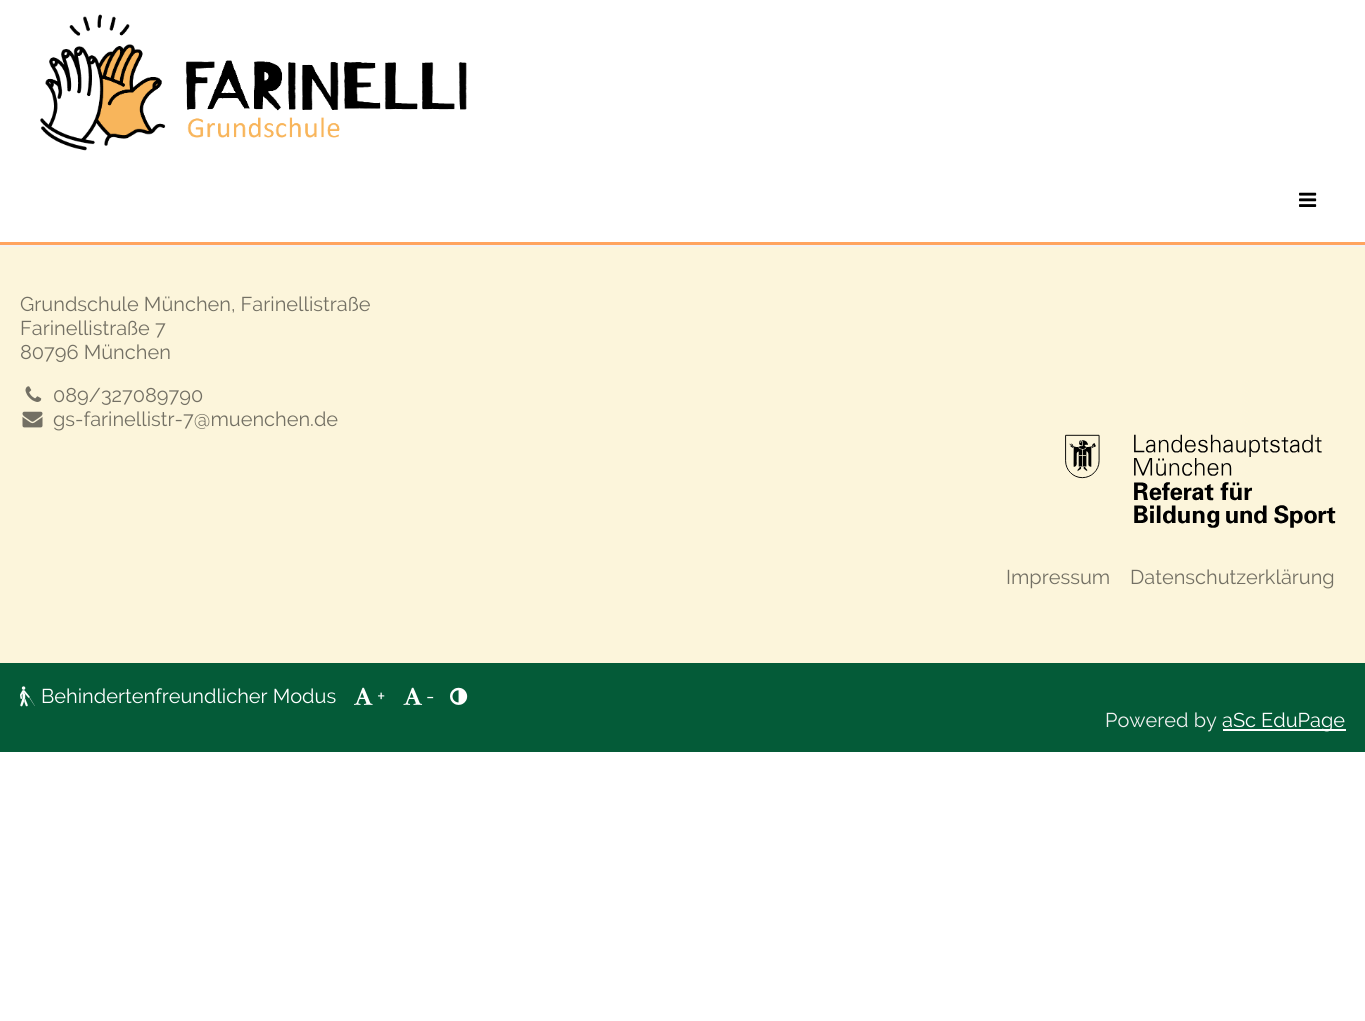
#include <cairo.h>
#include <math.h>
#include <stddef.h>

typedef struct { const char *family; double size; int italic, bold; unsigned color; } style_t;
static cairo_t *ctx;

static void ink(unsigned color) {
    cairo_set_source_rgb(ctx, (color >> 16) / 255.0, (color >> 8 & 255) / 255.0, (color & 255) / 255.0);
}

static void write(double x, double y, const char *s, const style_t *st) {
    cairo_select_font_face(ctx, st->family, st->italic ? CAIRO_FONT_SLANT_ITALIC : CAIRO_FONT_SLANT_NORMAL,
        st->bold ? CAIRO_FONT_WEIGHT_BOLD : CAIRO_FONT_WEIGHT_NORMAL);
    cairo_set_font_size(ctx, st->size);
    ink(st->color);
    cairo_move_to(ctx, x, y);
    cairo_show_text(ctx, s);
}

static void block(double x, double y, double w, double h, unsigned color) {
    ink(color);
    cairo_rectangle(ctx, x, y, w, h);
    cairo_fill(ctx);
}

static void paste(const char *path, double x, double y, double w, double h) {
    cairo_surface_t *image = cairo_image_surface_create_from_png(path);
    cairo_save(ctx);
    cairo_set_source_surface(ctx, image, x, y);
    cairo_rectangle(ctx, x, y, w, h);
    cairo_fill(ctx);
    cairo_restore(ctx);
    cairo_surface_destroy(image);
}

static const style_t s1 = {"Raleway", 20, 0, 0, 0x737064};
static const style_t s2 = {"Raleway", 20, 0, 0, 0xffffff};
static const style_t s3 = {"Raleway", 20, 0, 0, 0xf1f1f1};

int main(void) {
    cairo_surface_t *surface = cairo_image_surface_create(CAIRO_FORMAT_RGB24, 1365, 1021);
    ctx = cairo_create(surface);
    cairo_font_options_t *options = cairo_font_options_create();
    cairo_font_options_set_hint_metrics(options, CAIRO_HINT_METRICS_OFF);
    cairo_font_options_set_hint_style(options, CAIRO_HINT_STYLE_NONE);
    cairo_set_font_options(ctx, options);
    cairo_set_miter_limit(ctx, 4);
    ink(0xffffff);
    cairo_paint(ctx);
    paste("pic1.png", 40, 14, 427, 137);
    block(0, 242, 1365, 3, 0xffa45f);
    paste("pic2.png", 1299, 192, 18, 15);
    block(0, 247, 1365, 416, 0xfcf5db);
    block(0, 245, 1365, 2, 0xf3f3f3);
    write(20, 311, "Grundschule München, Farinellistraße", &s1);
    write(20, 335, "Farinellistraße 7", &s1);
    write(20, 359, "80796 München", &s1);
    paste("pic3.png", 25, 386, 17, 16);
    write(53, 402, "089/327089790", &s1);
    paste("pic4.png", 22, 411, 21, 17);
    write(53, 426, "gs-farinellistr-7@muenchen.de", &s1);
    paste("pic5.png", 1065, 434, 271, 94);
    write(1006, 584, "Impressum", &s1);
    write(1130, 584, "Datenschutzerklärung", &s1);
    block(0, 663, 1365, 89, 0x045b38);
    paste("pic6.png", 20, 686, 15, 21);
    write(41, 703, "Behindertenfreundlicher Modus", &s2);
    paste("pic7.png", 354, 687, 19, 18);
    write(377, 703, "+", &s2);
    paste("pic8.png", 403, 687, 20, 18);
    write(426, 703, "-", &s2);
    paste("pic9.png", 450, 687, 18, 18);
    write(1105, 727, "Powered by", &s3);
    block(1223, 729, 123, 2, 0xffffff);
    write(1222, 727, "aSc EduPage", &s2);
    cairo_surface_write_to_png(surface, "screenshot.png");
    cairo_font_options_destroy(options);
    cairo_destroy(ctx);
    cairo_surface_destroy(surface);
    return 0;
}
